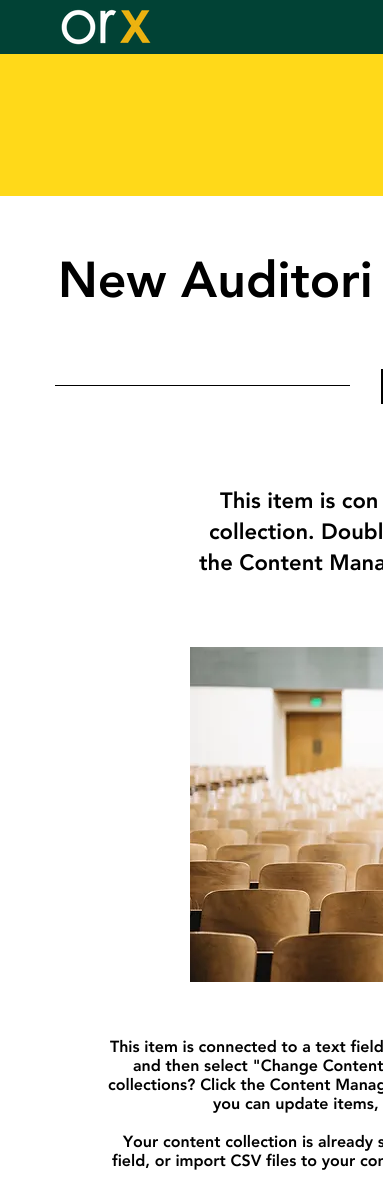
#include <cairo.h>
#include <math.h>
#include <stddef.h>

typedef struct { const char *family; double size; int italic, bold; unsigned color; } style_t;
static cairo_t *ctx;

static void ink(unsigned color) {
    cairo_set_source_rgb(ctx, (color >> 16) / 255.0, (color >> 8 & 255) / 255.0, (color & 255) / 255.0);
}

static void write(double x, double y, const char *s, const style_t *st) {
    cairo_select_font_face(ctx, st->family, st->italic ? CAIRO_FONT_SLANT_ITALIC : CAIRO_FONT_SLANT_NORMAL,
        st->bold ? CAIRO_FONT_WEIGHT_BOLD : CAIRO_FONT_WEIGHT_NORMAL);
    cairo_set_font_size(ctx, st->size);
    ink(st->color);
    cairo_move_to(ctx, x, y);
    cairo_show_text(ctx, s);
}

static void block(double x, double y, double w, double h, unsigned color) {
    ink(color);
    cairo_rectangle(ctx, x, y, w, h);
    cairo_fill(ctx);
}

static void paste(const char *path, double x, double y, double w, double h) {
    cairo_surface_t *image = cairo_image_surface_create_from_png(path);
    cairo_save(ctx);
    cairo_set_source_surface(ctx, image, x, y);
    cairo_rectangle(ctx, x, y, w, h);
    cairo_fill(ctx);
    cairo_restore(ctx);
    cairo_surface_destroy(image);
}

static const style_t s1 = {"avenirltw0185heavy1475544 Black", 50, 0, 0, 0x000000};
static const style_t s2 = {"avenirltw0185heavy1475544 Black", 22, 0, 0, 0x000000};
static const style_t s3 = {"avenirltw0185heavy1475544 Black", 16, 0, 0, 0x000000};

int main(void) {
    cairo_surface_t *surface = cairo_image_surface_create(CAIRO_FORMAT_RGB24, 383, 1188);
    ctx = cairo_create(surface);
    cairo_font_options_t *options = cairo_font_options_create();
    cairo_font_options_set_hint_metrics(options, CAIRO_HINT_METRICS_OFF);
    cairo_font_options_set_hint_style(options, CAIRO_HINT_STYLE_NONE);
    cairo_set_font_options(ctx, options);
    cairo_set_miter_limit(ctx, 4);
    ink(0xffffff);
    cairo_paint(ctx);
    block(0, 0, 383, 54, 0x014235);
    paste("pic1.png", 61, 9, 90, 36);
    block(0, 54, 383, 142, 0xffd919);
    write(58, 297, "New Auditori", &s1);
    block(55, 385, 295, 1, 0x000000);
    block(381, 369, 2, 35, 0x000000);
    write(220, 508, "This item is con", &s2);
    write(209, 539, "collection. Doubl", &s2);
    write(199, 570, "the Content Mana", &s2);
    paste("pic2.png", 190, 647, 193, 335);
    write(110, 1052, "This item is connected to a text field", &s3);
    write(133, 1071, "and then select \"Change Content", &s3);
    write(108, 1090, "collections? Click the Content Manag", &s3);
    write(213, 1109, "you can update items,", &s3);
    write(123, 1147, "Your content collection is already s", &s3);
    write(112, 1166, "field, or import CSV files to your con", &s3);
    cairo_surface_write_to_png(surface, "screenshot.png");
    cairo_font_options_destroy(options);
    cairo_destroy(ctx);
    cairo_surface_destroy(surface);
    return 0;
}
